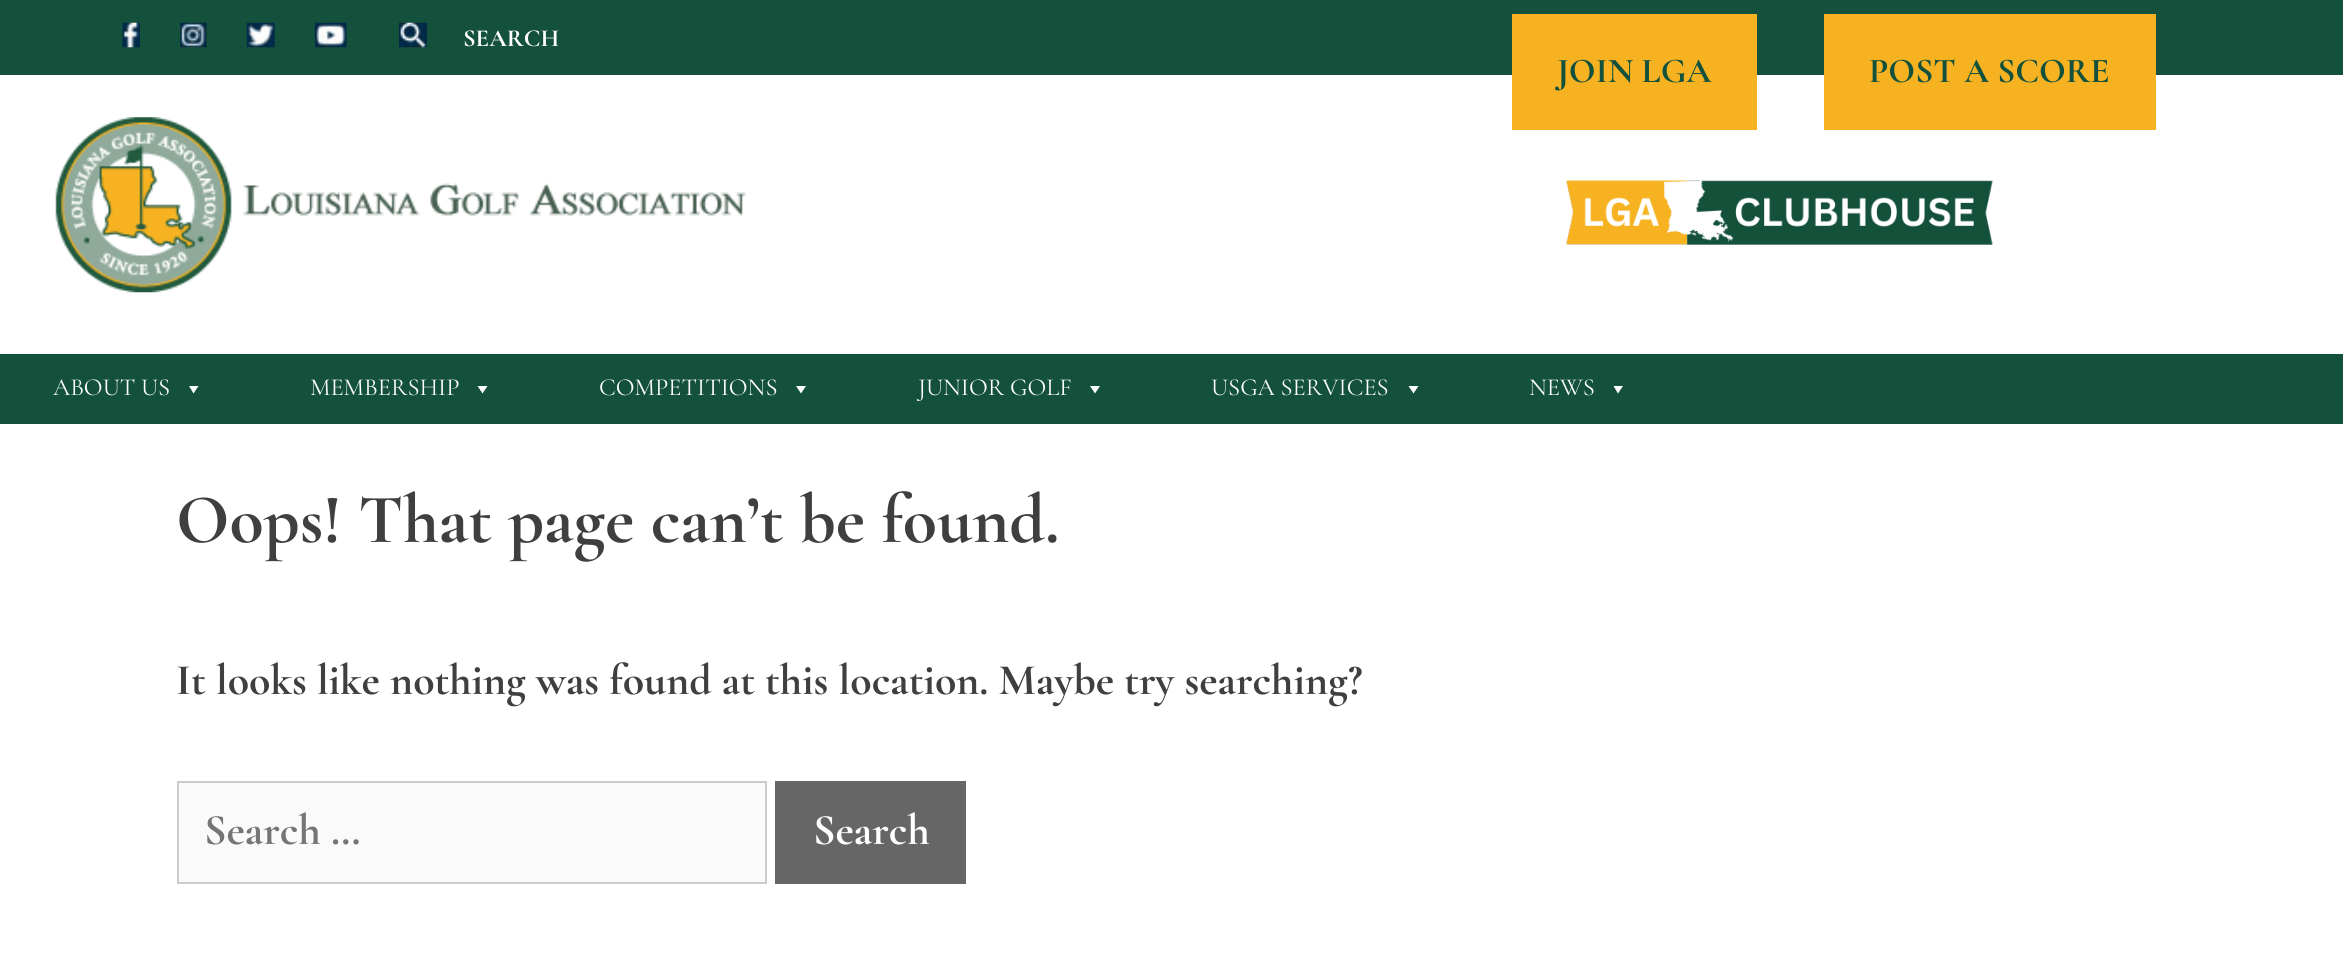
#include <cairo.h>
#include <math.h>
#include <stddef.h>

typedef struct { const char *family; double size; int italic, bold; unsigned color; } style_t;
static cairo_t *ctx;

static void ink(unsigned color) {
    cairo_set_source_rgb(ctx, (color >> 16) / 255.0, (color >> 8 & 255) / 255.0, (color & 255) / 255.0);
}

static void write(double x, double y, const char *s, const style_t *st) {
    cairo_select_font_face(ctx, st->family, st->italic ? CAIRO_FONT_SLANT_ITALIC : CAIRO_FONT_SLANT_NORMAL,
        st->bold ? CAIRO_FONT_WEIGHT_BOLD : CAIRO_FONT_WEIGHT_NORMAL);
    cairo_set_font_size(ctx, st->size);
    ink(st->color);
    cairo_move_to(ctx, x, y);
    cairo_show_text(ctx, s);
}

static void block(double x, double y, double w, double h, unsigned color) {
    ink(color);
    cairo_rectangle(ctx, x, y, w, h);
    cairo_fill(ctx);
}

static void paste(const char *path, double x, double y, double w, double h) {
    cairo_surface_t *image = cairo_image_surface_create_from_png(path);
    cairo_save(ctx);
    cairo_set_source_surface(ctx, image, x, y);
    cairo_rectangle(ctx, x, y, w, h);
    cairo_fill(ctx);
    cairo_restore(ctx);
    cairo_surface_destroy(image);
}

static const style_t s1 = {"Cormorant Garamond", 24.5, 0, 1, 0xffffff};
static const style_t s2 = {"Cormorant Garamond", 35, 0, 1, 0x13513c};
static const style_t s3 = {"Cormorant Garamond", 24.5, 0, 0, 0xffffff};
static const style_t s4 = {"Cormorant Garamond", 70, 0, 1, 0x3f3f3f};
static const style_t s5 = {"Cormorant Garamond", 43.75, 0, 1, 0x3f3f3f};
static const style_t s6 = {"Cormorant Garamond", 43.75, 0, 1, 0x757575};
static const style_t s7 = {"Cormorant Garamond", 43.75, 0, 1, 0xffffff};

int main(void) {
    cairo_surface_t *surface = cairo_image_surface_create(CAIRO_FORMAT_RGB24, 2343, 955);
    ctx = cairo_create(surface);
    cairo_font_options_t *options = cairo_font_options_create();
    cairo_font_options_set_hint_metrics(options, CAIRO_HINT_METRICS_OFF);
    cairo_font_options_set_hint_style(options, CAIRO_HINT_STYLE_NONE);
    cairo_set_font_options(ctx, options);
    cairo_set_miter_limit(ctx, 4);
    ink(0xffffff);
    cairo_paint(ctx);
    block(0, 0, 2343, 75, 0x13513c);
    paste("pic1.png", 122, 22, 18, 26);
    paste("pic2.png", 180, 22, 27, 26);
    paste("pic3.png", 246, 22, 29, 26);
    paste("pic4.png", 315, 22, 32, 26);
    paste("pic5.png", 399, 22, 28, 26);
    write(463, 46, "SEARCH", &s1);
    block(1512, 14, 245, 116, 0xf6b221);
    write(1557, 82, "JOIN LGA", &s2);
    block(1824, 14, 332, 116, 0xf6b221);
    write(1869, 82, "POST A SCORE", &s2);
    paste("pic6.png", 55, 117, 691, 176);
    paste("pic7.png", 1566, 180, 427, 65);
    block(0, 354, 2343, 70, 0x13513c);
    write(53, 395, "ABOUT US", &s3);
    cairo_new_path(ctx);
    cairo_move_to(ctx, 198.5, 386);
    cairo_line_to(ctx, 193.5, 393.5);
    cairo_line_to(ctx, 189, 386);
    cairo_close_path(ctx);
    cairo_fill(ctx);
    write(310, 395, "MEMBERSHIP", &s3);
    cairo_new_path(ctx);
    cairo_move_to(ctx, 487.5, 386);
    cairo_line_to(ctx, 482.5, 393.5);
    cairo_line_to(ctx, 477.5, 386);
    cairo_close_path(ctx);
    cairo_fill(ctx);
    write(599, 395, "COMPETITIONS", &s3);
    cairo_new_path(ctx);
    cairo_move_to(ctx, 806, 386);
    cairo_line_to(ctx, 801, 393.5);
    cairo_line_to(ctx, 796, 386);
    cairo_close_path(ctx);
    cairo_fill(ctx);
    write(918, 395, "JUNIOR GOLF", &s3);
    cairo_new_path(ctx);
    cairo_move_to(ctx, 1100, 386);
    cairo_line_to(ctx, 1095, 393.5);
    cairo_line_to(ctx, 1090, 386);
    cairo_close_path(ctx);
    cairo_fill(ctx);
    write(1211, 395, "USGA SERVICES", &s3);
    cairo_new_path(ctx);
    cairo_move_to(ctx, 1418.5, 386);
    cairo_line_to(ctx, 1413.5, 393.5);
    cairo_line_to(ctx, 1408.5, 386);
    cairo_close_path(ctx);
    cairo_fill(ctx);
    write(1529, 395, "NEWS", &s3);
    cairo_new_path(ctx);
    cairo_move_to(ctx, 1623, 386);
    cairo_line_to(ctx, 1618, 393.5);
    cairo_line_to(ctx, 1613.5, 386);
    cairo_close_path(ctx);
    cairo_fill(ctx);
    write(176, 542, "Oops! That page can’t be found.", &s4);
    write(176, 694, "It looks like nothing was found at this location. Maybe try searching?", &s5);
    ink(0xfafafa);
    cairo_rectangle(ctx, 178, 782, 588, 101);
    cairo_fill_preserve(ctx);
    ink(0xcccccc);
    cairo_stroke(ctx);
    write(204, 844, "Search …", &s6);
    block(775, 781, 191, 103, 0x666666);
    write(813, 844, "Search", &s7);
    cairo_surface_write_to_png(surface, "screenshot.png");
    cairo_font_options_destroy(options);
    cairo_destroy(ctx);
    cairo_surface_destroy(surface);
    return 0;
}
